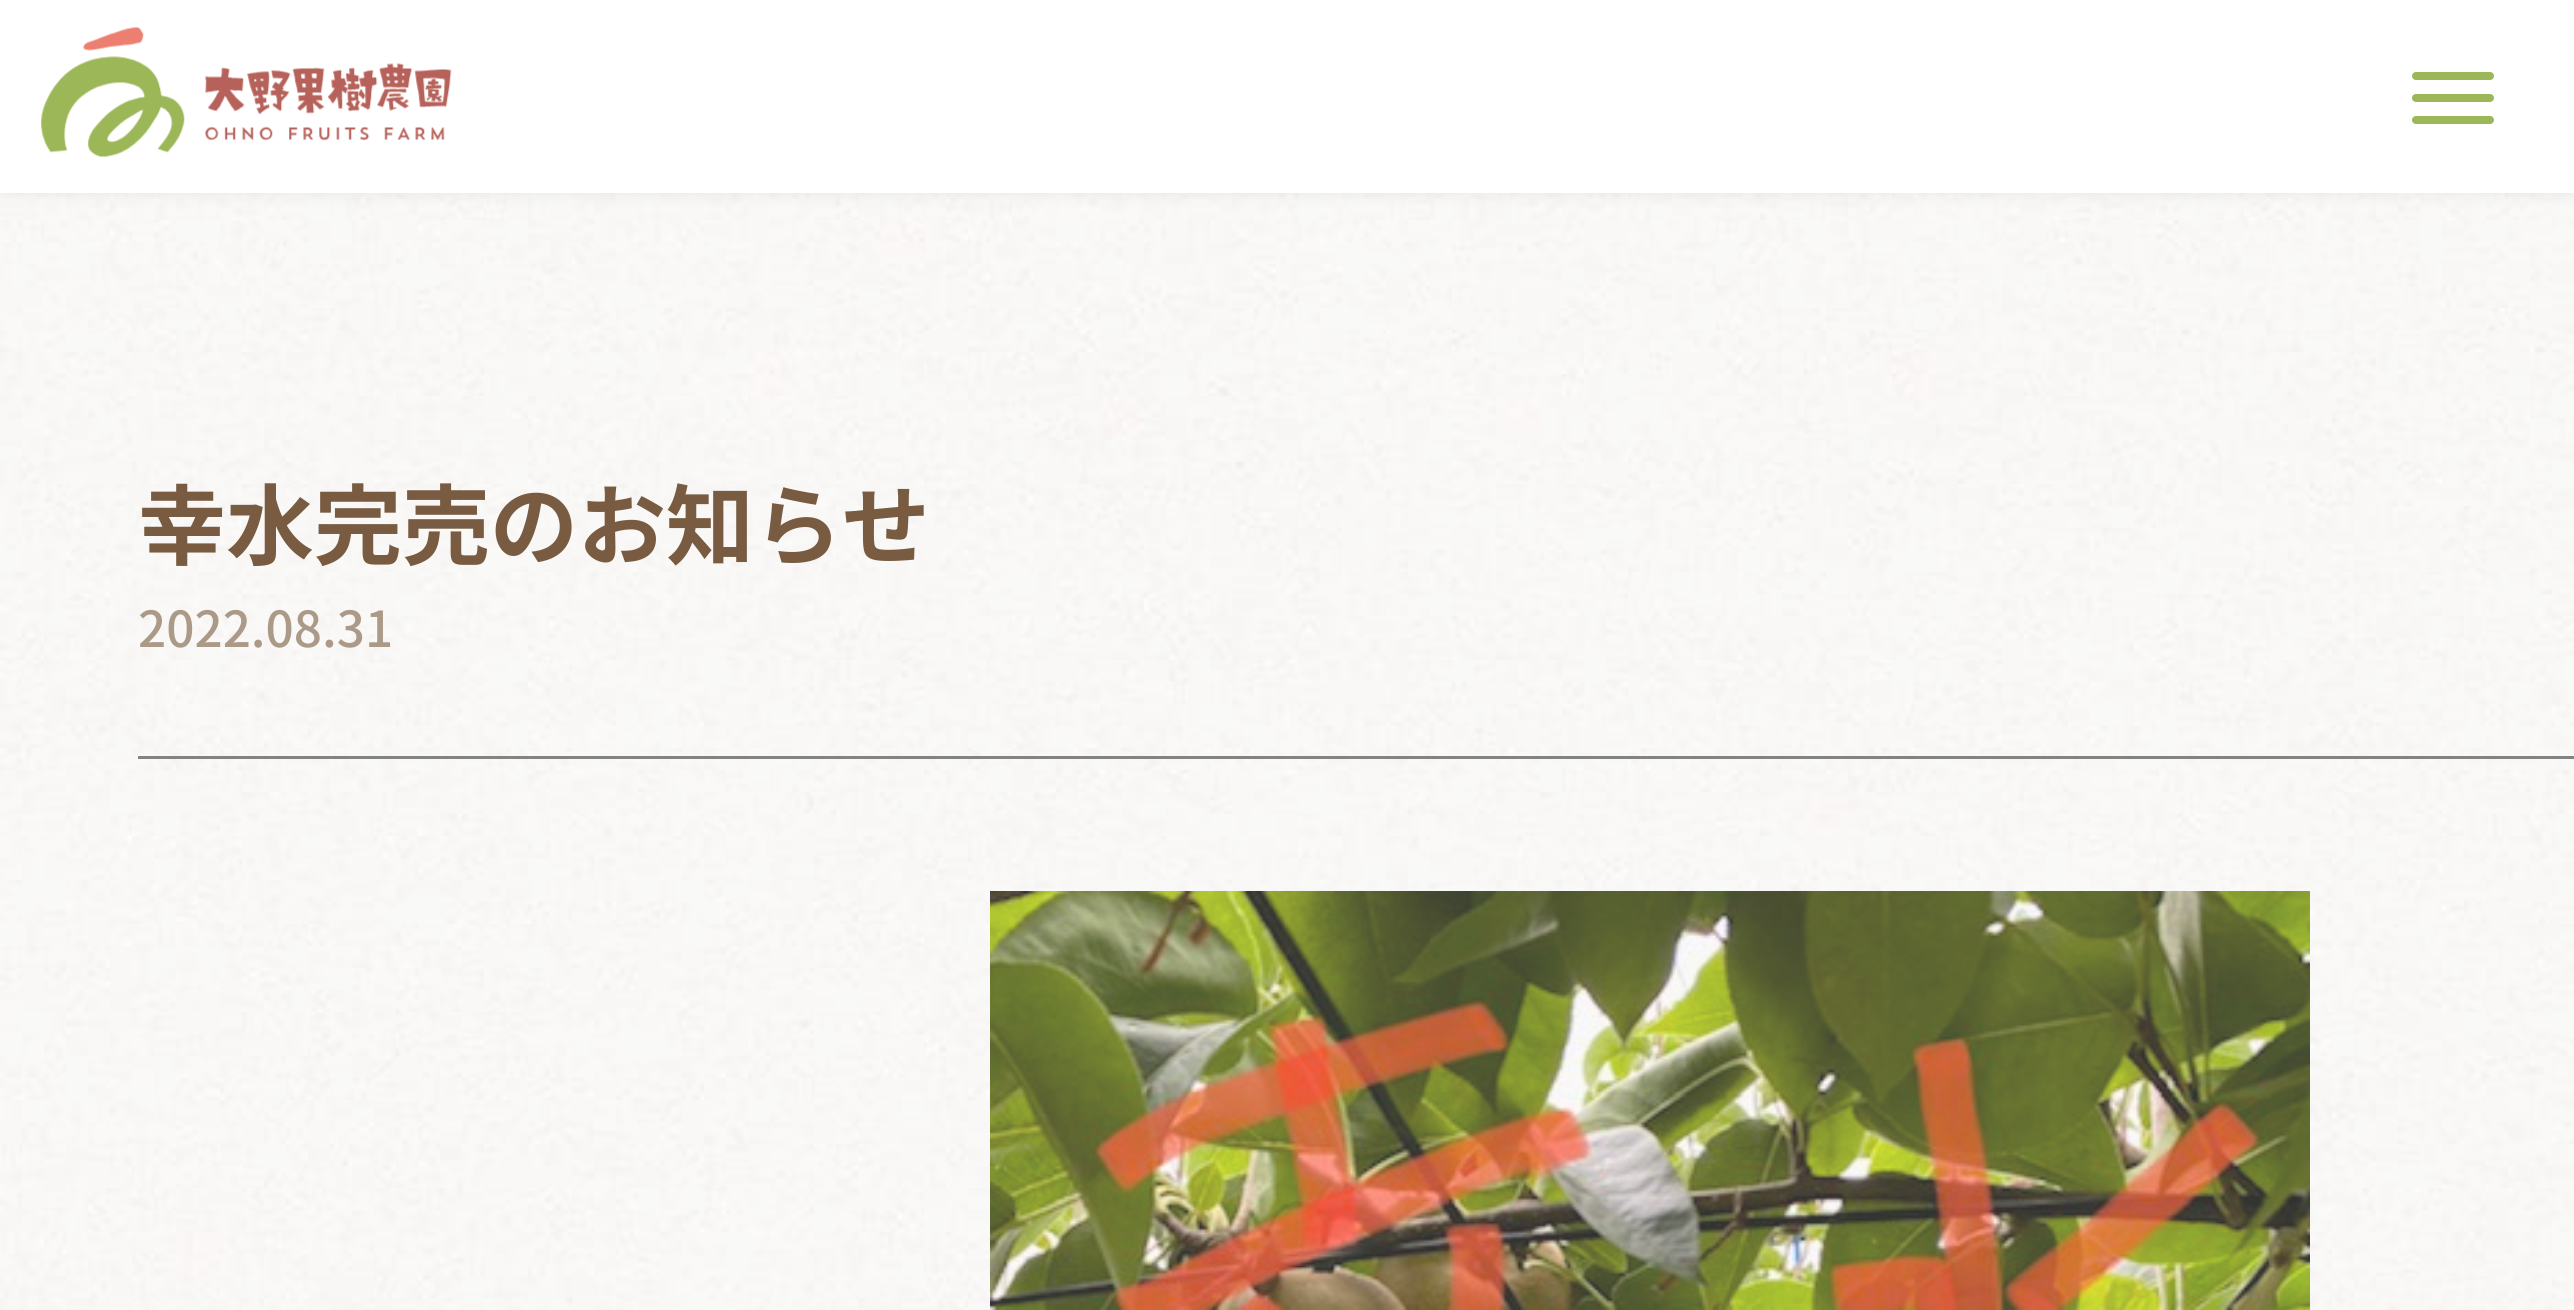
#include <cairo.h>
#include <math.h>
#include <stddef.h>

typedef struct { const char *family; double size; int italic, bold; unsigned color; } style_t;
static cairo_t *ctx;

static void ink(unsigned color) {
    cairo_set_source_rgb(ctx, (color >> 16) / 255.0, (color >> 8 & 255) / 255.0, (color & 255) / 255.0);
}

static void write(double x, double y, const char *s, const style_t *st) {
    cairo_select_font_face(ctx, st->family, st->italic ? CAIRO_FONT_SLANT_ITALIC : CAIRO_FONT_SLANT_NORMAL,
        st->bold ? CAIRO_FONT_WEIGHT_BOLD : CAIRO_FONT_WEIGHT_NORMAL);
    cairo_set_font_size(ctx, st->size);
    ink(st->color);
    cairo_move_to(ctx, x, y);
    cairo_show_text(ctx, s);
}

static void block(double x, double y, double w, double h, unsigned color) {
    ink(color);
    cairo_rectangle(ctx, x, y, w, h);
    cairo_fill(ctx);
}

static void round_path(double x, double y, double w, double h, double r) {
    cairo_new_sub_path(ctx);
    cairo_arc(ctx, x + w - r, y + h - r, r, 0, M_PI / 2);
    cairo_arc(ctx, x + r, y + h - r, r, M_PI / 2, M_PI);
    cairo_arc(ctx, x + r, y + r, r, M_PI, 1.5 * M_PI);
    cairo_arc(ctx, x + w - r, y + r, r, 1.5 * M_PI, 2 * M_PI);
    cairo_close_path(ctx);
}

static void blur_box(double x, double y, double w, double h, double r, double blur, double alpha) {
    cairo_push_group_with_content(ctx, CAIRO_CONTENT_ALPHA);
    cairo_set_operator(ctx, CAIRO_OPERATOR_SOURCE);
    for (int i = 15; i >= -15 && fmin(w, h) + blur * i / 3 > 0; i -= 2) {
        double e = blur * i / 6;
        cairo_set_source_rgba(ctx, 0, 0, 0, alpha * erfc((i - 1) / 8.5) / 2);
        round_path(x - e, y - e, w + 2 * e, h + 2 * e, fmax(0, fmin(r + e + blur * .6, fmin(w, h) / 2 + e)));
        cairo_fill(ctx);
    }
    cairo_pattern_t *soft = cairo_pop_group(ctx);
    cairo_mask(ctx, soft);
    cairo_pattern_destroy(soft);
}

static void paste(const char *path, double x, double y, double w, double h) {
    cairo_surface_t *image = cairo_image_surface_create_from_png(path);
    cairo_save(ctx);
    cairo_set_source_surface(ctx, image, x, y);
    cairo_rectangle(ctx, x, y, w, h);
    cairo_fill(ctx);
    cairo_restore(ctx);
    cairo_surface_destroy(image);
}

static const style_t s1 = {"Noto Sans JP", 88, 0, 1, 0x785b40};
static const style_t s2 = {"Noto Sans JP Medium", 49.5, 0, 0, 0xac9a89};

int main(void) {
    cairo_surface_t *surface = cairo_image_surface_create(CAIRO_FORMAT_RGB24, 2574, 1310);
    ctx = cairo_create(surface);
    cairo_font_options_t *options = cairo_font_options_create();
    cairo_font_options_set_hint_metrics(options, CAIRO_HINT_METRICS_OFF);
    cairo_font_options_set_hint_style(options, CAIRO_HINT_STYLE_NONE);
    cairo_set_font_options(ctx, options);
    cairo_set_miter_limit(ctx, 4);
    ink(0xffffff);
    cairo_paint(ctx);
    paste("pic1.png", 0, 193, 2574, 1117);
    ink(0x303030);
    blur_box(0, 0, 2574, 193, 0, 8, 0.1);
    block(0, 0, 2574, 193, 0xffffff);
    paste("pic2.png", 41, 27, 411, 130);
    ink(0x9cb757);
    round_path(2412, 72, 82, 8, 4);
    cairo_fill(ctx);
    round_path(2412, 94, 82, 8, 4);
    cairo_fill(ctx);
    round_path(2412, 116, 82, 8, 4);
    cairo_fill(ctx);
    block(138, 756, 2436, 3, 0x838383);
    write(138, 558, "幸水完売のお知らせ", &s1);
    write(138, 647, "2022.08.31", &s2);
    paste("pic3.png", 990, 891, 1320, 419);
    cairo_surface_write_to_png(surface, "screenshot.png");
    cairo_font_options_destroy(options);
    cairo_destroy(ctx);
    cairo_surface_destroy(surface);
    return 0;
}
